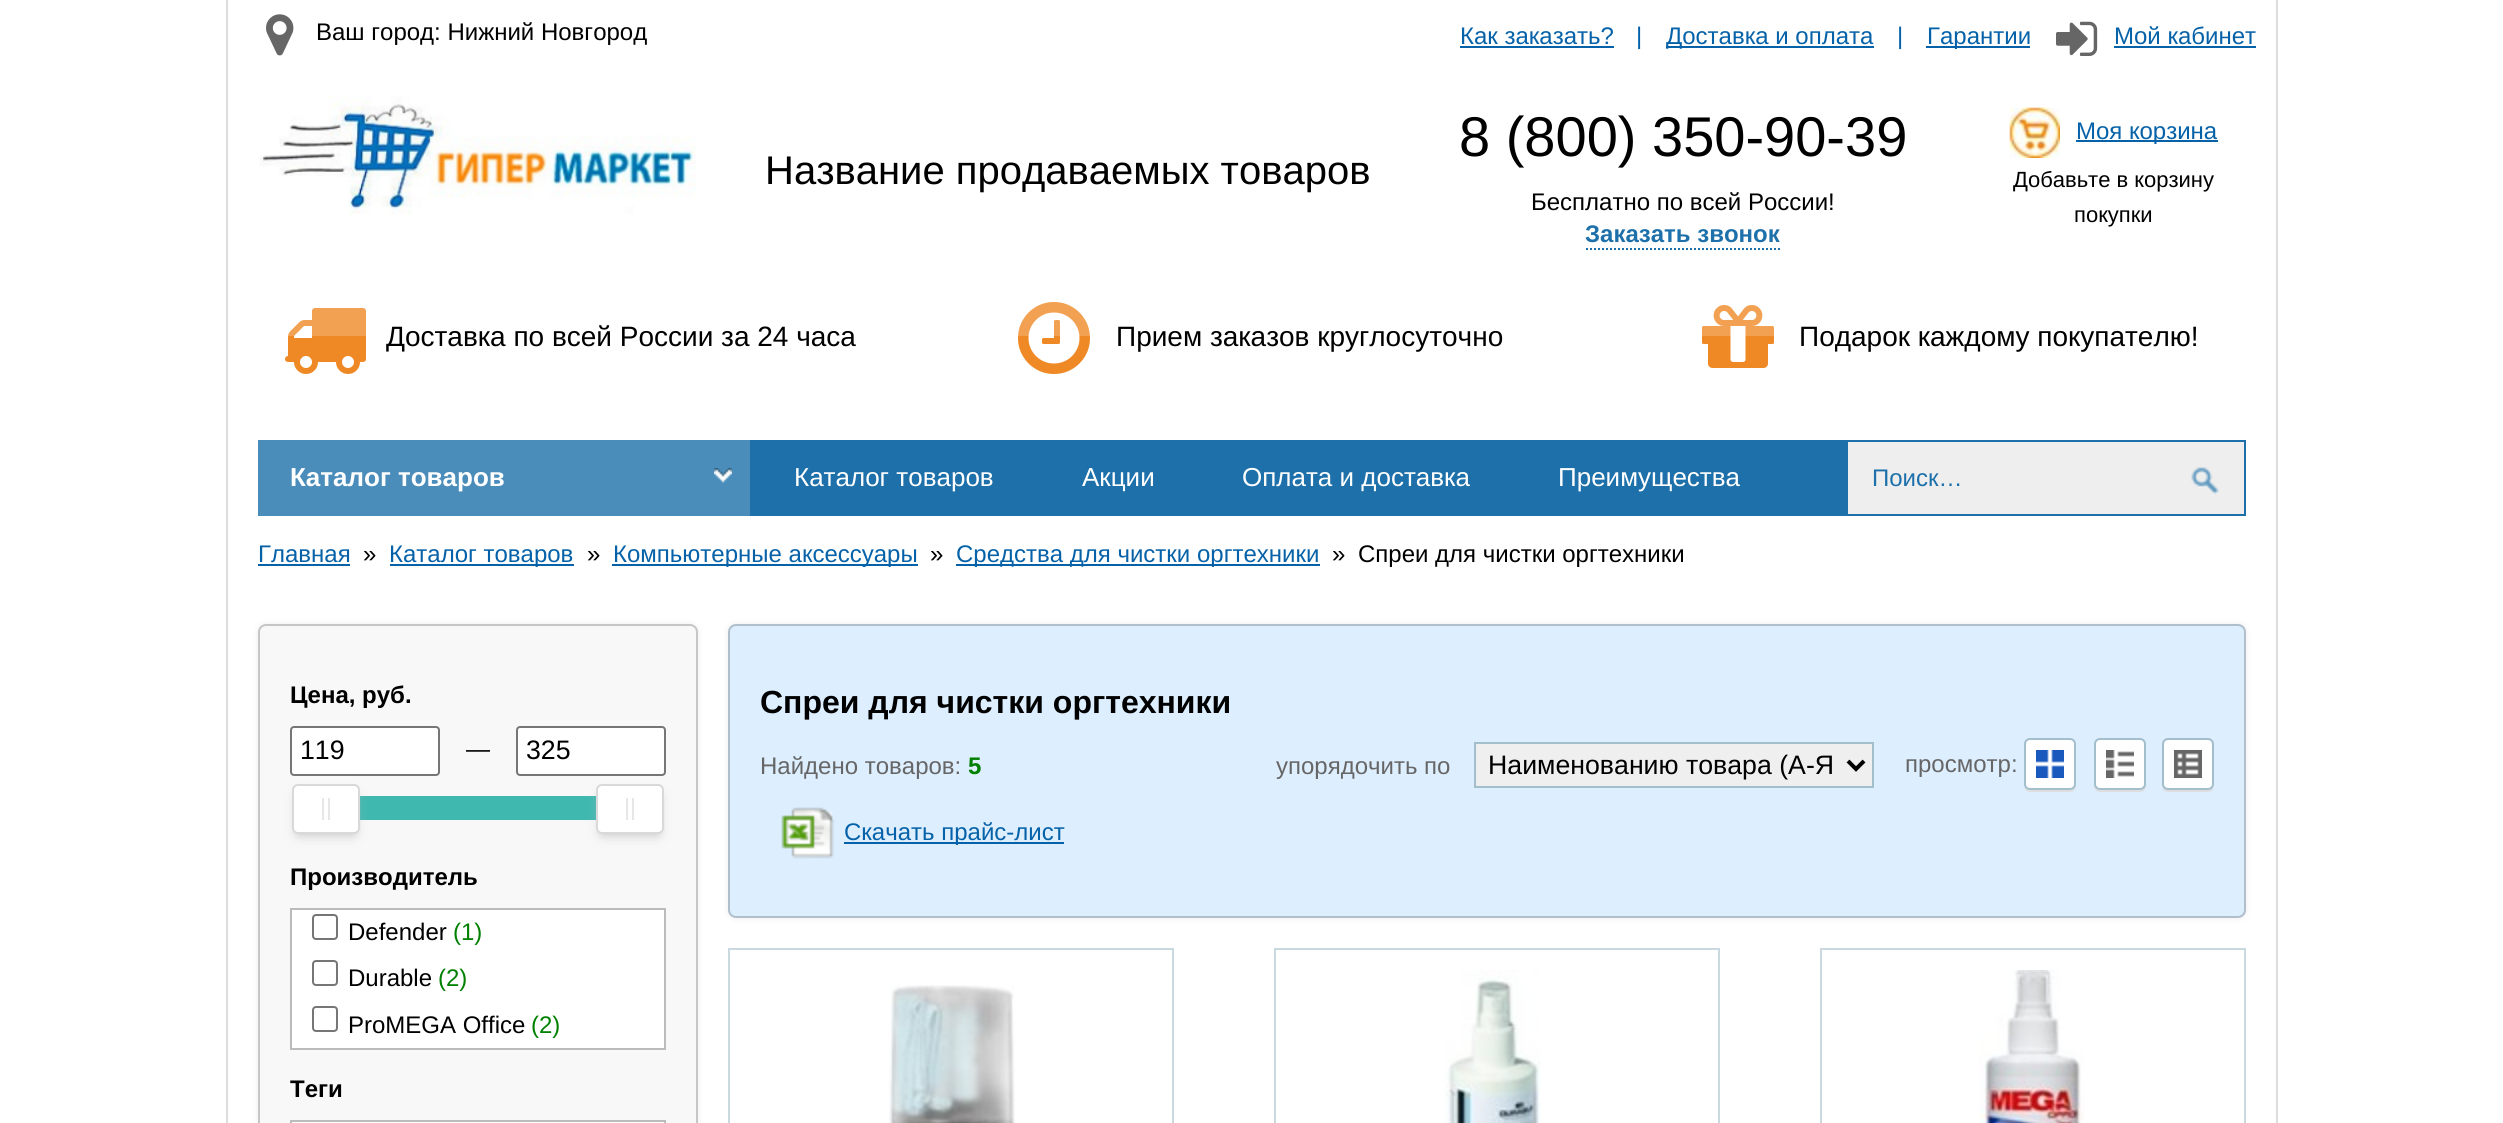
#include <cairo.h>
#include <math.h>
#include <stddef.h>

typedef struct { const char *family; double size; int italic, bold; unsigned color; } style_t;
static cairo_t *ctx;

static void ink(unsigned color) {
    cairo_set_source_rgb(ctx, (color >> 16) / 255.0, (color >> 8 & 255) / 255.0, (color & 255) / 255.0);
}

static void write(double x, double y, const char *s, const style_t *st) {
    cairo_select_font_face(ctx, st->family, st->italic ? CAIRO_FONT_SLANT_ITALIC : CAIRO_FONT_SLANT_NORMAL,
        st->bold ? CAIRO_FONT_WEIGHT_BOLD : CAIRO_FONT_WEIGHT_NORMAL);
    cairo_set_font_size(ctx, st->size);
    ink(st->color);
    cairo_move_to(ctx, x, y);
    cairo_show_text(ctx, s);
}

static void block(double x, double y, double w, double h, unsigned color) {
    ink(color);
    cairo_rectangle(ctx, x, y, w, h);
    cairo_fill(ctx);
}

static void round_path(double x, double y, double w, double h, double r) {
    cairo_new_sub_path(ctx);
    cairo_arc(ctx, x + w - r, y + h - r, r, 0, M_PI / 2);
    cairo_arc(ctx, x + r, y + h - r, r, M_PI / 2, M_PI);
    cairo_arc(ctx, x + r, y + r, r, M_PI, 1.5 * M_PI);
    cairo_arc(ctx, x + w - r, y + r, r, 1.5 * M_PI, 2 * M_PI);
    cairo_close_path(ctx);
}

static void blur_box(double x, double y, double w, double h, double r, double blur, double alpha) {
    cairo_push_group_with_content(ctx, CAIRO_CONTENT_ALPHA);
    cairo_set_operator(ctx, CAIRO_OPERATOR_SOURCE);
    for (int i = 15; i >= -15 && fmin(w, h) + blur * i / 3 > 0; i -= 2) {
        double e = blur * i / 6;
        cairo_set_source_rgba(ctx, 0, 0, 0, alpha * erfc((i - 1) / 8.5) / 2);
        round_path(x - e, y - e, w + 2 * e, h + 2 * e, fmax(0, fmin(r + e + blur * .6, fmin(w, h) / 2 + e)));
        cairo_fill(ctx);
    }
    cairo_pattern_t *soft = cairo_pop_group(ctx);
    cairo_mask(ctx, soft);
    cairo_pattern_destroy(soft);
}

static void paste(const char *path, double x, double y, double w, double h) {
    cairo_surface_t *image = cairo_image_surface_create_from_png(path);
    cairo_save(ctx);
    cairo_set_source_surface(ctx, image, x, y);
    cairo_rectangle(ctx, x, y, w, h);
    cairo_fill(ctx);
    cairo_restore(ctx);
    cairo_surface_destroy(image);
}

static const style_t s1 = {"Liberation Sans", 24, 0, 0, 0x000000};
static const style_t s2 = {"Liberation Sans", 24, 0, 0, 0x0662a8};
static const style_t s3 = {"Liberation Sans", 40, 0, 0, 0x000000};
static const style_t s4 = {"Liberation Sans", 56, 0, 0, 0x000000};
static const style_t s5 = {"Liberation Sans", 24, 0, 1, 0x1d70aa};
static const style_t s6 = {"Liberation Sans", 22, 0, 0, 0x000000};
static const style_t s7 = {"Liberation Sans", 28, 0, 0, 0x000000};
static const style_t s8 = {"Liberation Sans", 26, 0, 1, 0xffffff};
static const style_t s9 = {"Liberation Sans", 26, 0, 0, 0xffffff};
static const style_t s10 = {"Liberation Sans", 24, 0, 0, 0x1d70aa};
static const style_t s11 = {"Liberation Sans", 24, 0, 1, 0x000000};
static const style_t s12 = {"Liberation Sans", 26.7, 0, 0, 0x000000};
static const style_t s13 = {"Liberation Sans", 24, 0, 0, 0x008000};
static const style_t s14 = {"Liberation Sans", 32, 0, 1, 0x000000};
static const style_t s15 = {"Liberation Sans", 24, 0, 0, 0x666666};
static const style_t s16 = {"Liberation Sans", 24, 0, 1, 0x008000};

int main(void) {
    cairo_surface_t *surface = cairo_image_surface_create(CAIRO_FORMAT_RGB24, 2503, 1123);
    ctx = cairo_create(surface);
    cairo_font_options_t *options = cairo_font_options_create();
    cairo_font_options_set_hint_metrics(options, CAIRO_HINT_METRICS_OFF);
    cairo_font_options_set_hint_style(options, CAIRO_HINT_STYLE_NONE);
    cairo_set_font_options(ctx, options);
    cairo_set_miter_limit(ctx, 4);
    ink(0xffffff);
    cairo_paint(ctx);
    block(2276, 0, 2, 1123, 0xdddddd);
    block(226, 0, 2, 1123, 0xdddddd);
    paste("pic1.png", 266, 14, 28, 42);
    write(316, 40, "Ваш город: Нижний Новгород", &s1);
    write(1460, 44, "Как заказать?", &s2);
    block(1460, 46, 154, 2, 0x0662a8);
    write(1636, 44, "|", &s2);
    block(1666, 46, 208, 2, 0x0662a8);
    write(1666, 44, "Доставка и оплата", &s2);
    write(1897, 44, "|", &s2);
    block(1926, 46, 104, 2, 0x0662a8);
    write(1927, 44, "Гарантии", &s2);
    paste("pic2.png", 2056, 21, 42, 35);
    write(2114, 44, "Мой кабинет", &s2);
    block(2114, 46, 142, 2, 0x0662a8);
    paste("pic3.png", 259, 96, 437, 119);
    write(765, 184, "Название продаваемых товаров", &s3);
    write(1459, 156, "8 (800) 350-90-39", &s4);
    write(1531, 210, "Бесплатно по всей России!", &s1);
    write(1585, 242, "Заказать звонок", &s5);
    cairo_new_path(ctx);
    cairo_move_to(ctx, 1586, 249);
    cairo_line_to(ctx, 1780, 249);
    cairo_set_dash(ctx, (double[]){2, 2}, 2, 0);
    cairo_stroke(ctx);
    paste("pic4.png", 2009, 107, 51, 51);
    block(2076, 140, 142, 2, 0x0662a8);
    write(2076, 139, "Моя корзина", &s2);
    write(2013, 187, "Добавьте в корзину", &s6);
    write(2074, 222, "покупки", &s6);
    paste("pic5.png", 285, 308, 81, 66);
    cairo_set_source_rgba(ctx, 1, 1, 1, 0.2);
    cairo_rectangle(ctx, 288, 308, 78, 28);
    cairo_fill(ctx);
    write(386, 346, "Доставка по всей России за 24 часа", &s7);
    paste("pic6.png", 1018, 302, 72, 72);
    cairo_set_source_rgba(ctx, 1, 1, 1, 0.2);
    cairo_rectangle(ctx, 1018, 302, 72, 34);
    cairo_fill(ctx);
    write(1116, 346, "Прием заказов круглосуточно", &s7);
    paste("pic7.png", 1702, 305, 72, 63);
    cairo_set_source_rgba(ctx, 1, 1, 1, 0.2);
    cairo_rectangle(ctx, 1702, 305, 72, 31);
    cairo_fill(ctx);
    write(1799, 346, "Подарок каждому покупателю!", &s7);
    block(750, 440, 1096, 76, 0x1d70aa);
    block(258, 440, 492, 76, 0x4a8dbb);
    write(290, 486, "Каталог товаров", &s8);
    paste("pic8.png", 714, 468, 18, 15);
    write(794, 486, "Каталог товаров", &s9);
    write(1082, 486, "Акции", &s9);
    write(1242, 486, "Оплата и доставка", &s9);
    write(1558, 486, "Преимущества", &s9);
    ink(0xeeeeee);
    cairo_rectangle(ctx, 1847, 441, 398, 74);
    cairo_fill_preserve(ctx);
    ink(0x1d70aa);
    cairo_set_dash(ctx, NULL, 0, 0);
    cairo_stroke(ctx);
    write(1872, 486, "Поиск…", &s10);
    paste("pic9.png", 2191, 467, 28, 28);
    write(258, 562, "Главная", &s2);
    block(258, 564, 92, 2, 0x0662a8);
    write(363, 562, "»", &s1);
    block(390, 564, 184, 2, 0x0662a8);
    write(389, 562, "Каталог товаров", &s2);
    write(587, 562, "»", &s1);
    block(612, 564, 306, 2, 0x0662a8);
    write(613, 562, "Компьютерные аксессуары", &s2);
    write(930, 562, "»", &s1);
    block(956, 564, 364, 2, 0x0662a8);
    write(956, 562, "Средства для чистки оргтехники", &s2);
    write(1332, 562, "»", &s1);
    write(1358, 562, "Спреи для чистки оргтехники", &s1);
    ink(0xececec);
    blur_box(258, 624, 440, 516, 8, 3, 1);
    ink(0xf8f8f8);
    round_path(259, 625, 438, 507, 7);
    cairo_fill_preserve(ctx);
    ink(0xc6c6c6);
    cairo_stroke(ctx);
    write(290, 703, "Цена, руб.", &s11);
    ink(0xffffff);
    round_path(291, 727, 148, 48, 3);
    cairo_fill_preserve(ctx);
    ink(0x767676);
    cairo_stroke(ctx);
    write(300, 759, "119", &s12);
    write(466, 757, "—", &s1);
    ink(0xffffff);
    round_path(517, 727, 148, 48, 3);
    cairo_fill_preserve(ctx);
    ink(0x767676);
    cairo_stroke(ctx);
    write(526, 759, "325", &s12);
    block(360, 796, 236, 24, 0x3fb8af);
    ink(0xbbbbbb);
    blur_box(298, 796, 56, 38, 0, 6, 1);
    ink(0xffffff);
    round_path(293, 785, 66, 48, 5);
    cairo_fill_preserve(ctx);
    ink(0xd9d9d9);
    cairo_stroke(ctx);
    block(322, 798, 2, 22, 0xe8e7e6);
    block(328, 798, 2, 22, 0xe8e7e6);
    ink(0xbbbbbb);
    blur_box(602, 796, 56, 38, 0, 6, 1);
    ink(0xffffff);
    round_path(597, 785, 66, 48, 5);
    cairo_fill_preserve(ctx);
    ink(0xd9d9d9);
    cairo_stroke(ctx);
    block(626, 798, 2, 22, 0xe8e7e6);
    block(632, 798, 2, 22, 0xe8e7e6);
    write(290, 885, "Производитель", &s11);
    ink(0xffffff);
    cairo_rectangle(ctx, 291, 909, 374, 140);
    cairo_fill_preserve(ctx);
    ink(0xbbbbbb);
    cairo_stroke(ctx);
    round_path(313, 915, 24, 24, 3);
    ink(0x767676);
    cairo_stroke(ctx);
    write(348, 940, "Defender", &s1);
    write(453, 940, "(1)", &s13);
    round_path(313, 961, 24, 24, 3);
    ink(0x767676);
    cairo_stroke(ctx);
    write(348, 986, "Durable", &s1);
    write(438, 986, "(2)", &s13);
    round_path(313, 1007, 24, 24, 3);
    ink(0x767676);
    cairo_stroke(ctx);
    write(348, 1033, "ProMEGA Office", &s1);
    write(531, 1033, "(2)", &s13);
    write(290, 1097, "Теги", &s11);
    ink(0xffffff);
    cairo_rectangle(ctx, 291, 1121, 374, 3);
    cairo_fill_preserve(ctx);
    ink(0xbbbbbb);
    cairo_stroke(ctx);
    ink(0xececec);
    blur_box(728, 624, 1518, 294, 8, 3, 1);
    ink(0xddeeff);
    round_path(728, 624, 1518, 294, 8);
    cairo_fill(ctx);
    round_path(729, 625, 1516, 292, 7);
    cairo_set_source_rgba(ctx, 0, 0, 0, 0.2);
    cairo_stroke(ctx);
    write(760, 713, "Спреи для чистки оргтехники", &s14);
    write(760, 774, "Найдено товаров:", &s15);
    write(968, 774, "5", &s16);
    write(1276, 774, "упорядочить по", &s15);
    ink(0xefefef);
    cairo_rectangle(ctx, 1475, 743, 398, 44);
    cairo_fill_preserve(ctx);
    ink(0xa3becc);
    cairo_stroke(ctx);
    cairo_new_path(ctx);
    cairo_move_to(ctx, 1848, 761);
    cairo_line_to(ctx, 1856, 769);
    cairo_line_to(ctx, 1864, 761);
    ink(0x000000);
    cairo_set_line_width(ctx, 4);
    cairo_stroke(ctx);
    write(1488, 774, "Наименованию товара (А-Я", &s12);
    write(1905, 772, "просмотр:", &s15);
    ink(0xdddddd);
    cairo_new_path(ctx);
    cairo_move_to(ctx, 2024, 784);
    cairo_curve_to(ctx, 2024, 793, 2029, 792, 2037, 792);
    cairo_line_to(ctx, 2063, 792);
    cairo_curve_to(ctx, 2071, 792, 2076, 793, 2076, 784);
    cairo_curve_to(ctx, 2076, 787, 2073, 790, 2070, 790);
    cairo_line_to(ctx, 2030, 790);
    cairo_curve_to(ctx, 2027, 790, 2024, 787, 2024, 784);
    cairo_close_path(ctx);
    cairo_fill(ctx);
    ink(0xfefefe);
    round_path(2025, 739, 50, 50, 5);
    cairo_fill_preserve(ctx);
    ink(0xa3becc);
    cairo_set_line_width(ctx, 2);
    cairo_stroke(ctx);
    paste("pic10.png", 2036, 750, 28, 28);
    ink(0xdddddd);
    cairo_new_path(ctx);
    cairo_move_to(ctx, 2094, 784);
    cairo_curve_to(ctx, 2094, 793, 2099, 792, 2107, 792);
    cairo_line_to(ctx, 2133, 792);
    cairo_curve_to(ctx, 2141, 792, 2146, 793, 2146, 784);
    cairo_curve_to(ctx, 2146, 787, 2143, 790, 2140, 790);
    cairo_line_to(ctx, 2100, 790);
    cairo_curve_to(ctx, 2097, 790, 2094, 787, 2094, 784);
    cairo_close_path(ctx);
    cairo_fill(ctx);
    ink(0xfefefe);
    round_path(2095, 739, 50, 50, 5);
    cairo_fill_preserve(ctx);
    ink(0xa3becc);
    cairo_stroke(ctx);
    paste("pic11.png", 2106, 750, 28, 28);
    ink(0xdddddd);
    cairo_new_path(ctx);
    cairo_move_to(ctx, 2162, 784);
    cairo_curve_to(ctx, 2162, 793, 2167, 792, 2175, 792);
    cairo_line_to(ctx, 2201, 792);
    cairo_curve_to(ctx, 2209, 792, 2214, 793, 2214, 784);
    cairo_curve_to(ctx, 2214, 787, 2211, 790, 2208, 790);
    cairo_line_to(ctx, 2168, 790);
    cairo_curve_to(ctx, 2165, 790, 2162, 787, 2162, 784);
    cairo_close_path(ctx);
    cairo_fill(ctx);
    ink(0xfefefe);
    round_path(2163, 739, 50, 50, 5);
    cairo_fill_preserve(ctx);
    ink(0xa3becc);
    cairo_stroke(ctx);
    paste("pic12.png", 2174, 750, 28, 28);
    paste("pic13.png", 781, 807, 54, 52);
    block(844, 842, 220, 2, 0x0662a8);
    write(844, 840, "Скачать прайс-лист", &s2);
    cairo_rectangle(ctx, 729, 949, 444, 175);
    ink(0xcad9e0);
    cairo_stroke(ctx);
    paste("pic14.png", 889, 985, 126, 138);
    cairo_rectangle(ctx, 1275, 949, 444, 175);
    cairo_stroke(ctx);
    paste("pic15.png", 1444, 970, 97, 153);
    cairo_rectangle(ctx, 1821, 949, 424, 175);
    cairo_stroke(ctx);
    paste("pic16.png", 1979, 970, 105, 153);
    cairo_surface_write_to_png(surface, "screenshot.png");
    cairo_font_options_destroy(options);
    cairo_destroy(ctx);
    cairo_surface_destroy(surface);
    return 0;
}
